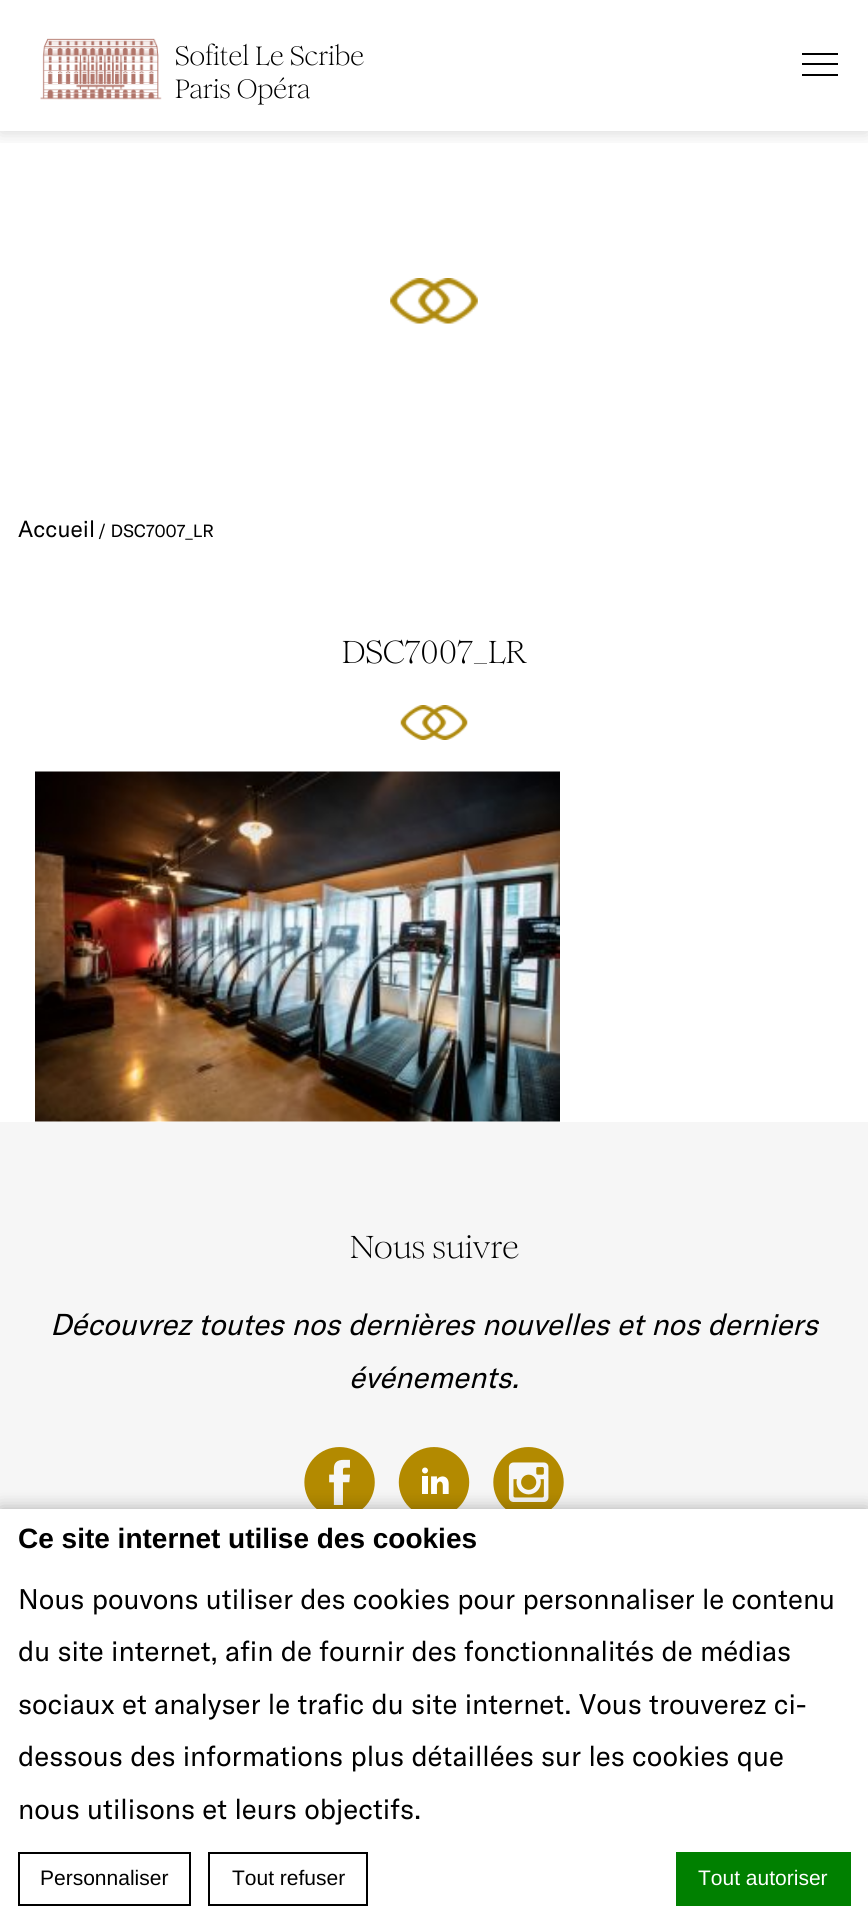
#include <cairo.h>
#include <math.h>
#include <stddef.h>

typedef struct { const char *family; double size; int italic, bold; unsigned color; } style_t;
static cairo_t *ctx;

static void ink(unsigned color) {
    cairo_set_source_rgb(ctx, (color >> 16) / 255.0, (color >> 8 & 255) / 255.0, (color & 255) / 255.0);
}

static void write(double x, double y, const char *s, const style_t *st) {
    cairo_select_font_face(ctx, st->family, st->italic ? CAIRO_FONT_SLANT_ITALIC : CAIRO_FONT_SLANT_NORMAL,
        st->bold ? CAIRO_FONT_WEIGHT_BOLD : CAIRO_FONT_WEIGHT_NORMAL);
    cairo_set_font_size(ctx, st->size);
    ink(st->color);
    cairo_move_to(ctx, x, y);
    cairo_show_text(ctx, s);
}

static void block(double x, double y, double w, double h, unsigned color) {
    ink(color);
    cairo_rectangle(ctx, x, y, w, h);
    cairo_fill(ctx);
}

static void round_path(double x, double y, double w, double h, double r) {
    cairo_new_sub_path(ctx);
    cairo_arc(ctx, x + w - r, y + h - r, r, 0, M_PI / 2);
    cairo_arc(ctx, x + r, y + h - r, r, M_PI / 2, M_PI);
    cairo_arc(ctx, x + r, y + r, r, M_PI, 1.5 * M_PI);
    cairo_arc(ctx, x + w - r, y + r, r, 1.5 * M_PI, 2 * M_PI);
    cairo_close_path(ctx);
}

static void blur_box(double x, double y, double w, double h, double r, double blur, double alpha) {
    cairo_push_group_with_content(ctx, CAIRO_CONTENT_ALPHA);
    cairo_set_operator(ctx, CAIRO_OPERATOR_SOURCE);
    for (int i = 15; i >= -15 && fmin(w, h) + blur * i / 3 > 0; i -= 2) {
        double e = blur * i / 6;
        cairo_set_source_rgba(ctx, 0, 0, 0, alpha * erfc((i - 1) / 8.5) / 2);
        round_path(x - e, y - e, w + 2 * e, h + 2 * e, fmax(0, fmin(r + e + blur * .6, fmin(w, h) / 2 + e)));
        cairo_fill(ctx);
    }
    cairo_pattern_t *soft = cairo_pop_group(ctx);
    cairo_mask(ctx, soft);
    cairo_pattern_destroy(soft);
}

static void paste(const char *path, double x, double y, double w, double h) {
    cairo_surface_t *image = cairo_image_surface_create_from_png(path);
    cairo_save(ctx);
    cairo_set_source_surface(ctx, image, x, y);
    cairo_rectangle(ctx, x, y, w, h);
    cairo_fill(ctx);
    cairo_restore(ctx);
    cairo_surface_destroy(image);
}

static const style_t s1 = {"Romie", 26.25, 0, 0, 0x000000};
static const style_t s2 = {"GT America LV", 23, 0, 0, 0x000000};
static const style_t s3 = {"GT America LV", 17.5, 0, 0, 0x000000};
static const style_t s4 = {"Romie", 31.5, 0, 0, 0x000000};
static const style_t s5 = {"GT America LV", 29.75, 1, 0, 0x000000};
static const style_t s6 = {"Liberation Sans", 28, 0, 1, 0x000000};
static const style_t s7 = {"GT America LV", 28, 0, 0, 0x000000};
static const style_t s8 = {"Liberation Sans", 21, 0, 0, 0x000000};
static const style_t s9 = {"Liberation Sans", 21, 0, 0, 0xffffff};

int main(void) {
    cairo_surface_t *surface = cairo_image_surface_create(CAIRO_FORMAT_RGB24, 868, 1931);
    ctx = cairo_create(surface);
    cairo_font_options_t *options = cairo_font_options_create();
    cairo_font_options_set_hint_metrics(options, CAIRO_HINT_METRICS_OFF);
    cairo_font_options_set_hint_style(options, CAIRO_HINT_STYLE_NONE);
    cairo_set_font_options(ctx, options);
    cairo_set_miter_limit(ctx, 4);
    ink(0xffffff);
    cairo_paint(ctx);
    cairo_save(ctx);
    cairo_rectangle(ctx, 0, 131, 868, 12);
    cairo_clip(ctx);
    ink(0x000000);
    blur_box(0, 2, 868, 131, 0, 9, 0.15);
    cairo_restore(ctx);
    paste("pic1.png", 40, 38, 122, 62);
    write(175, 65, "Sofitel Le Scribe", &s1);
    write(175, 98, "Paris Opéra", &s1);
    block(802, 63, 36, 2, 0x000000);
    block(802, 53, 36, 2, 0x000000);
    block(802, 74, 36, 2, 0x000000);
    paste("pic2.png", 390, 278, 88, 46);
    write(18, 537, "Accueil", &s2);
    write(98, 537, "/ DSC7007_LR", &s3);
    write(342, 663, "DSC7007_LR", &s4);
    paste("pic3.png", 400, 705, 68, 35);
    paste("pic4.png", 35, 771, 525, 351);
    block(0, 1122, 868, 387, 0xf6f6f6);
    write(350, 1258, "Nous suivre", &s4);
    write(50, 1335, "Découvrez toutes nos dernières nouvelles et nos derniers", &s5);
    write(349, 1388, "événements.", &s5);
    paste("pic5.png", 304, 1447, 71, 62);
    paste("pic6.png", 398, 1447, 72, 62);
    paste("pic7.png", 493, 1447, 71, 62);
    ink(0x000000);
    blur_box(0, 1509, 868, 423, 0, 9, 0.3);
    block(0, 1509, 868, 422, 0xffffff);
    write(18, 1548, "Ce site internet utilise des cookies", &s6);
    write(18, 1609, "Nous pouvons utiliser des cookies pour personnaliser le contenu", &s7);
    write(18, 1661, "du site internet, afin de fournir des fonctionnalités de médias", &s7);
    write(18, 1714, "sociaux et analyser le trafic du site internet. Vous trouverez ci-", &s7);
    write(18, 1766, "dessous des informations plus détaillées sur les cookies que", &s7);
    write(18, 1819, "nous utilisons et leurs objectifs.", &s7);
    cairo_rectangle(ctx, 19, 1853, 171, 52);
    cairo_stroke(ctx);
    write(40, 1885, "Personnaliser", &s8);
    cairo_rectangle(ctx, 209, 1853, 158, 52);
    cairo_stroke(ctx);
    write(232, 1885, "Tout refuser", &s8);
    block(676, 1852, 175, 54, 0x008000);
    write(698, 1885, "Tout autoriser", &s9);
    cairo_surface_write_to_png(surface, "screenshot.png");
    cairo_font_options_destroy(options);
    cairo_destroy(ctx);
    cairo_surface_destroy(surface);
    return 0;
}
